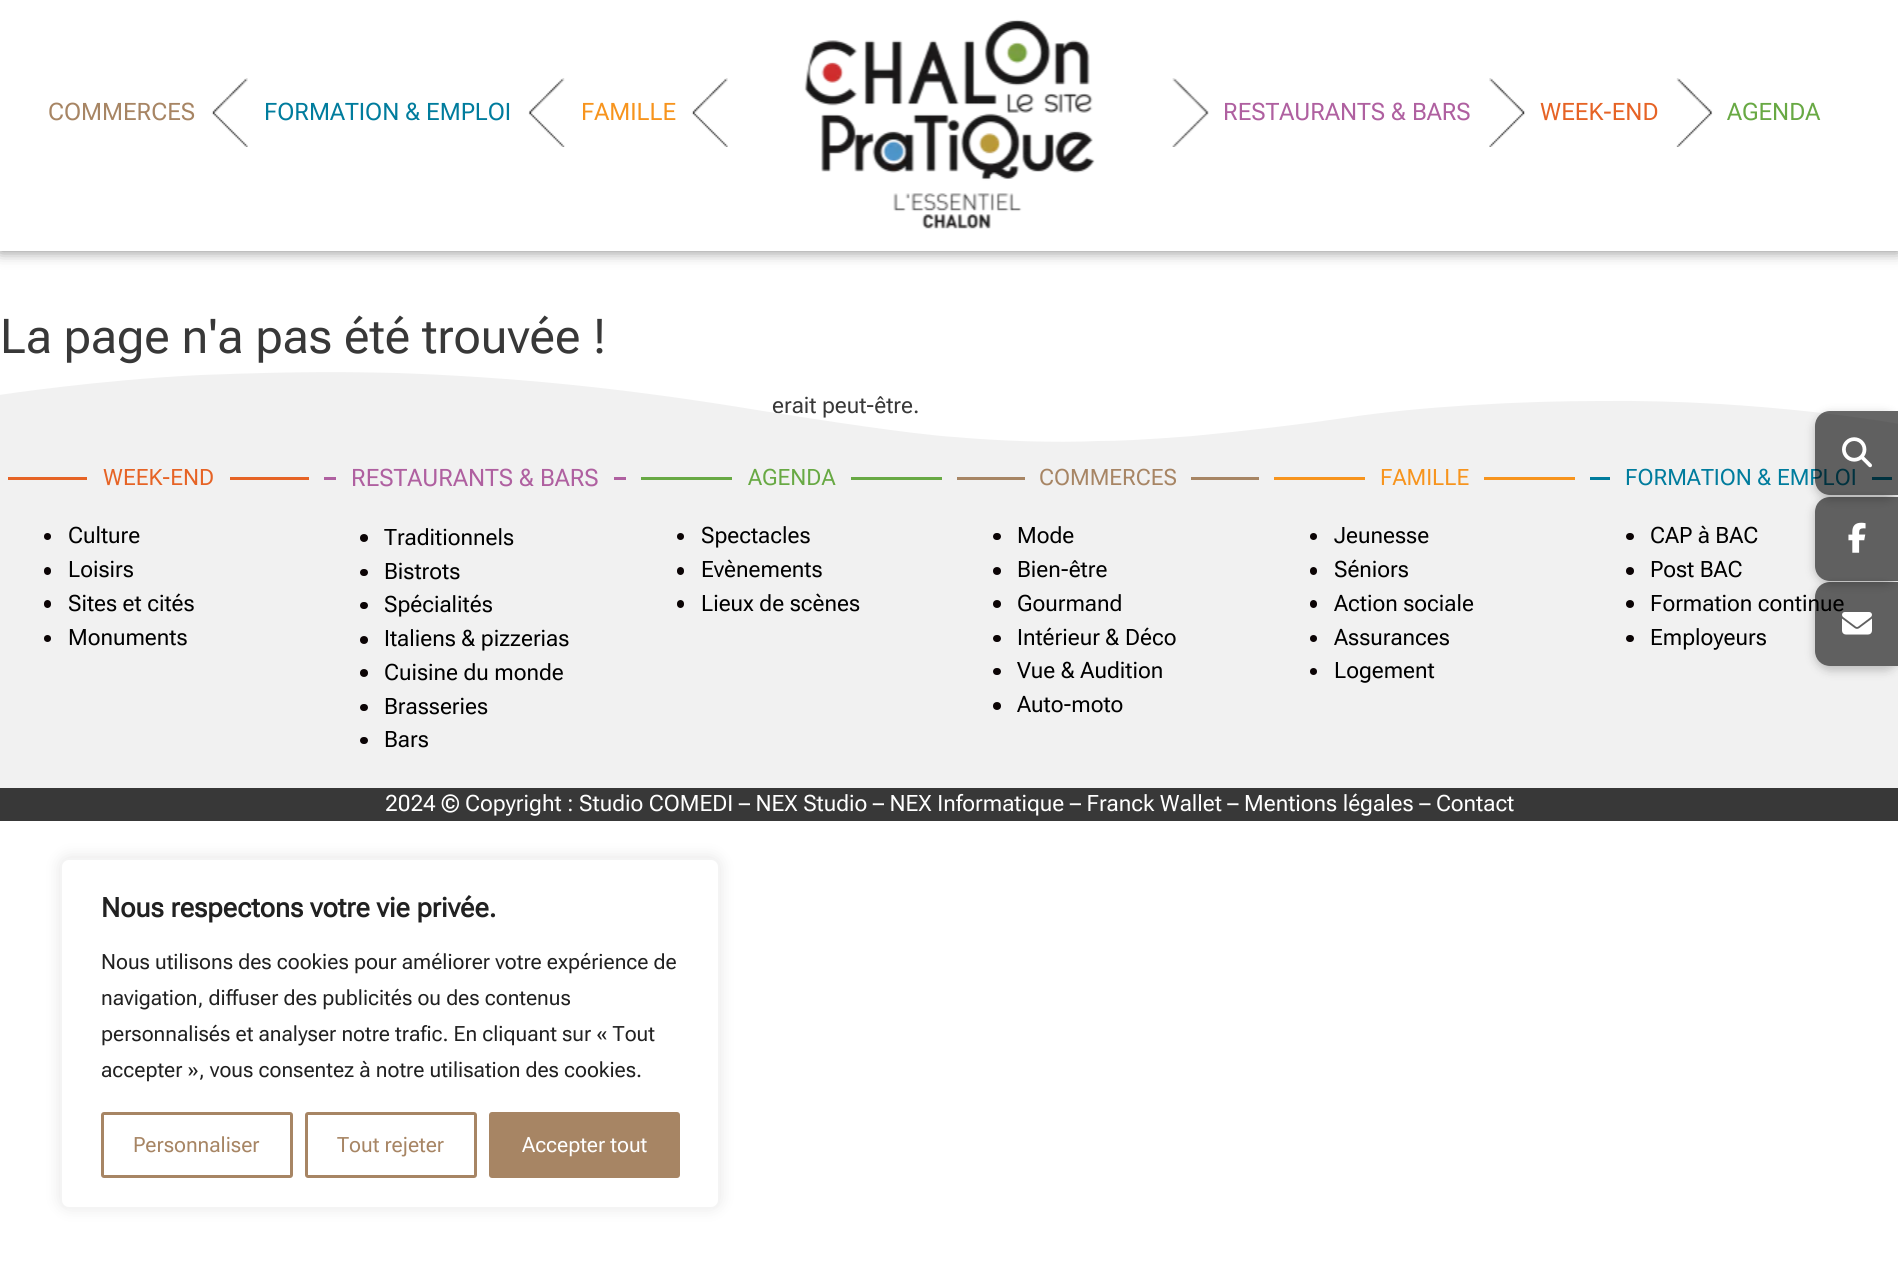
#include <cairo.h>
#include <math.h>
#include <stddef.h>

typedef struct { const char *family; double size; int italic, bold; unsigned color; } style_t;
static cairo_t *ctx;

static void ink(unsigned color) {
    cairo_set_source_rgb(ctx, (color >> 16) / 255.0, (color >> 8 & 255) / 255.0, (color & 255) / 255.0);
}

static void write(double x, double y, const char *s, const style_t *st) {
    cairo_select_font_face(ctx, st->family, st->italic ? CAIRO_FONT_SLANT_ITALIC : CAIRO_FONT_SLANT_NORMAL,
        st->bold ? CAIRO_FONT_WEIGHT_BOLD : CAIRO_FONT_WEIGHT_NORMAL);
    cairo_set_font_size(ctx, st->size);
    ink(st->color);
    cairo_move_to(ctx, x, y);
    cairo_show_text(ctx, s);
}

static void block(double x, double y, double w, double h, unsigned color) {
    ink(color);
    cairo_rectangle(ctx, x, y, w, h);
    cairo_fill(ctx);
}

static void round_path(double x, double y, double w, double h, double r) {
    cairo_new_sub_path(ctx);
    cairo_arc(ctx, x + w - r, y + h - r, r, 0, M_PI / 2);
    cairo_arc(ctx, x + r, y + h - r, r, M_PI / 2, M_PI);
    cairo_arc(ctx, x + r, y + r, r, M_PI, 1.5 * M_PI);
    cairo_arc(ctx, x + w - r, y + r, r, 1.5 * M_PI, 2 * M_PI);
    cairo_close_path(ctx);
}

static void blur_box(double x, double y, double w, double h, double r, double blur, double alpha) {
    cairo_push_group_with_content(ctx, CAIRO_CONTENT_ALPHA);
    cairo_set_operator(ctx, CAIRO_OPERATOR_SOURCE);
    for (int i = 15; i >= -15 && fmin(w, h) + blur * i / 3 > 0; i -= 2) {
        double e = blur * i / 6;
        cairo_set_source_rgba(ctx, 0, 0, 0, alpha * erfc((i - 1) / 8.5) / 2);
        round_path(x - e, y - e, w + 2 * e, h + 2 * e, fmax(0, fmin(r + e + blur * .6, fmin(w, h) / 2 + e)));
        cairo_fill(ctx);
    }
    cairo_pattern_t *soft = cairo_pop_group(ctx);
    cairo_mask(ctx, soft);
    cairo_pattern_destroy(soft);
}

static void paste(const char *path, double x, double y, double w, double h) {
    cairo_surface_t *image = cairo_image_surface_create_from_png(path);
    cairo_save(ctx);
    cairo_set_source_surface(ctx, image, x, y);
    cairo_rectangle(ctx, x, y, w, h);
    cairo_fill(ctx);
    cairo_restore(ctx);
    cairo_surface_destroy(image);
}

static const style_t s1 = {"Roboto Flex", 24, 0, 0, 0xa78564};
static const style_t s2 = {"Roboto Flex", 24, 0, 0, 0x007c9d};
static const style_t s3 = {"Roboto Flex", 24, 0, 0, 0xf7941d};
static const style_t s4 = {"Roboto Flex", 24, 0, 0, 0xaf60a0};
static const style_t s5 = {"Roboto Flex", 24, 0, 0, 0xe66325};
static const style_t s6 = {"Roboto Flex", 24, 0, 0, 0x68a944};
static const style_t s7 = {"Roboto Flex", 48, 0, 0, 0x383838};
static const style_t s8 = {"Roboto Flex", 22.5, 0, 0, 0x383838};
static const style_t s9 = {"Roboto Flex", 22.5, 0, 0, 0x000000};
static const style_t s10 = {"Roboto Flex", 22.5, 0, 0, 0x007c9d};
static const style_t s11 = {"Roboto Flex", 22.5, 0, 0, 0xe66325};
static const style_t s12 = {"Roboto Flex", 22.5, 0, 0, 0x68a944};
static const style_t s13 = {"Roboto Flex", 22.5, 0, 0, 0xa78564};
static const style_t s14 = {"Roboto Flex", 22.5, 0, 0, 0xf7941d};
static const style_t s15 = {"Roboto Flex", 22.5, 0, 0, 0xffffff};
static const style_t s16 = {"Roboto Flex", 27, 0, 1, 0x212121};
static const style_t s17 = {"Roboto Flex", 21, 0, 0, 0x212121};
static const style_t s18 = {"Roboto Flex", 21, 0, 0, 0xa78564};
static const style_t s19 = {"Roboto Flex", 21, 0, 0, 0xffffff};

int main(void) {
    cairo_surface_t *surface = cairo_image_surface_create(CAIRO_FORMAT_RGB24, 1898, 1269);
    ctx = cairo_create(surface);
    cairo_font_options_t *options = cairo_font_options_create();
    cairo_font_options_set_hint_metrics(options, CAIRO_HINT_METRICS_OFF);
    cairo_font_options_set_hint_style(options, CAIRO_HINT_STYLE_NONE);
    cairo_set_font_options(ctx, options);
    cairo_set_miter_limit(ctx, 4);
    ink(0xffffff);
    cairo_paint(ctx);
    ink(0x000000);
    blur_box(0, 0, 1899, 251, 0, 7.5, 0.5);
    block(0, 0, 1898, 251, 0xffffff);
    write(48, 120, "COMMERCES", &s1);
    paste("pic1.png", 211, 78, 37, 69);
    write(264, 120, "FORMATION & EMPLOI", &s2);
    paste("pic2.png", 528, 78, 37, 69);
    write(581, 120, "FAMILLE", &s3);
    paste("pic1.png", 691, 78, 37, 69);
    paste("pic3.png", 804, 19, 291, 210);
    paste("pic4.png", 1172, 78, 37, 69);
    write(1223, 120, "RESTAURANTS & BARS", &s4);
    paste("pic5.png", 1489, 78, 36, 69);
    write(1540, 120, "WEEK-END", &s5);
    paste("pic6.png", 1676, 78, 37, 69);
    write(1727, 120, "AGENDA", &s6);
    write(0, 353, "La page n'a pas été trouvée !", &s7);
    write(772, 413, "erait peut-être.", &s8);
    ink(0xf1f1f1);
    cairo_new_path(ctx);
    cairo_move_to(ctx, 1098, 441);
    cairo_curve_to(ctx, 1055, 443, 1000, 441, 954, 437);
    cairo_curve_to(ctx, 910, 434, 820, 420, 763, 411);
    cairo_curve_to(ctx, 619, 387, 509, 377, 397, 373);
    cairo_curve_to(ctx, 352, 372, 305, 371, 201, 375);
    cairo_curve_to(ctx, 97, 380, -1, 395, -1, 395);
    cairo_line_to(ctx, -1, 446);
    cairo_line_to(ctx, 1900, 446);
    cairo_line_to(ctx, 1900, 424);
    cairo_curve_to(ctx, 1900, 424, 1763, 399, 1599, 401);
    cairo_curve_to(ctx, 1524, 401, 1422, 406, 1344, 418);
    cairo_curve_to(ctx, 1304, 424, 1245, 431, 1193, 436);
    cairo_curve_to(ctx, 1141, 440, 1118, 441, 1098, 441);
    cairo_close_path(ctx);
    cairo_fill(ctx);
    block(0, 446, 1898, 342, 0xf1f1f1);
    cairo_save(ctx);
    cairo_set_fill_rule(ctx, CAIRO_FILL_RULE_EVEN_ODD);
    cairo_new_path(ctx);
    cairo_move_to(ctx, 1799, 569);
    cairo_line_to(ctx, 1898, 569);
    cairo_line_to(ctx, 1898, 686);
    cairo_line_to(ctx, 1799, 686);
    cairo_close_path(ctx);
    cairo_move_to(ctx, 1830, 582);
    cairo_line_to(ctx, 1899, 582);
    cairo_line_to(ctx, 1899, 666);
    cairo_line_to(ctx, 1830, 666);
    cairo_curve_to(ctx, 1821.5, 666, 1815, 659.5, 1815, 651);
    cairo_line_to(ctx, 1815, 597);
    cairo_curve_to(ctx, 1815, 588.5, 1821.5, 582, 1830, 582);
    cairo_close_path(ctx);
    cairo_clip(ctx);
    ink(0x000000);
    blur_box(1814, 584, 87, 87, 17, 4.5, 0.2);
    cairo_restore(ctx);
    write(1650, 611, "Formation continue", &s9);
    cairo_set_source_rgba(ctx, 0, 0, 0, 0.6);
    cairo_new_path(ctx);
    cairo_move_to(ctx, 1830, 582);
    cairo_line_to(ctx, 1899, 582);
    cairo_line_to(ctx, 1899, 666);
    cairo_line_to(ctx, 1830, 666);
    cairo_curve_to(ctx, 1821.5, 666, 1815, 659.5, 1815, 651);
    cairo_line_to(ctx, 1815, 597);
    cairo_curve_to(ctx, 1815, 588.5, 1821.5, 582, 1830, 582);
    cairo_close_path(ctx);
    cairo_fill(ctx);
    cairo_save(ctx);
    cairo_set_fill_rule(ctx, CAIRO_FILL_RULE_EVEN_ODD);
    cairo_new_path(ctx);
    cairo_move_to(ctx, 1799, 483);
    cairo_line_to(ctx, 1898, 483);
    cairo_line_to(ctx, 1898, 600);
    cairo_line_to(ctx, 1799, 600);
    cairo_close_path(ctx);
    cairo_move_to(ctx, 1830, 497);
    cairo_line_to(ctx, 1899, 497);
    cairo_line_to(ctx, 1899, 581);
    cairo_line_to(ctx, 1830, 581);
    cairo_curve_to(ctx, 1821.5, 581, 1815, 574.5, 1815, 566);
    cairo_line_to(ctx, 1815, 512);
    cairo_curve_to(ctx, 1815, 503.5, 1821.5, 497, 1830, 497);
    cairo_close_path(ctx);
    cairo_clip(ctx);
    ink(0x000000);
    blur_box(1814, 498, 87, 87, 17, 4.5, 0.2);
    cairo_restore(ctx);
    cairo_new_path(ctx);
    cairo_move_to(ctx, 1830, 497);
    cairo_line_to(ctx, 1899, 497);
    cairo_line_to(ctx, 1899, 581);
    cairo_line_to(ctx, 1830, 581);
    cairo_curve_to(ctx, 1821.5, 581, 1815, 574.5, 1815, 566);
    cairo_line_to(ctx, 1815, 512);
    cairo_curve_to(ctx, 1815, 503.5, 1821.5, 497, 1830, 497);
    cairo_close_path(ctx);
    cairo_fill(ctx);
    block(1872, 477, 20, 3, 0x007c9d);
    cairo_save(ctx);
    cairo_set_fill_rule(ctx, CAIRO_FILL_RULE_EVEN_ODD);
    cairo_new_path(ctx);
    cairo_move_to(ctx, 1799, 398);
    cairo_line_to(ctx, 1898, 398);
    cairo_line_to(ctx, 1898, 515);
    cairo_line_to(ctx, 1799, 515);
    cairo_close_path(ctx);
    cairo_move_to(ctx, 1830, 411);
    cairo_line_to(ctx, 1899, 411);
    cairo_line_to(ctx, 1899, 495);
    cairo_line_to(ctx, 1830, 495);
    cairo_curve_to(ctx, 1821.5, 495, 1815, 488.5, 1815, 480);
    cairo_line_to(ctx, 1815, 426);
    cairo_curve_to(ctx, 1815, 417.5, 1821.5, 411, 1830, 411);
    cairo_close_path(ctx);
    cairo_clip(ctx);
    ink(0x000000);
    blur_box(1814, 413, 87, 87, 17, 4.5, 0.2);
    cairo_restore(ctx);
    write(1625, 485, "FORMATION & EMPLOI", &s10);
    cairo_set_source_rgba(ctx, 0, 0, 0, 0.6);
    cairo_new_path(ctx);
    cairo_move_to(ctx, 1830, 411);
    cairo_line_to(ctx, 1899, 411);
    cairo_line_to(ctx, 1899, 495);
    cairo_line_to(ctx, 1830, 495);
    cairo_curve_to(ctx, 1821.5, 495, 1815, 488.5, 1815, 480);
    cairo_line_to(ctx, 1815, 426);
    cairo_curve_to(ctx, 1815, 417.5, 1821.5, 411, 1830, 411);
    cairo_close_path(ctx);
    cairo_fill(ctx);
    paste("pic7.png", 1842, 437, 30, 31);
    paste("pic8.png", 1848, 522, 18, 31);
    paste("pic9.png", 1842, 612, 30, 23);
    block(8, 477, 79, 3, 0xe66325);
    write(103, 485, "WEEK-END", &s11);
    block(230, 477, 79, 3, 0xe66325);
    ink(0x0b0405);
    cairo_new_path(ctx);
    cairo_arc(ctx, 47.5, 536.5, 3.5, 0, 2 * M_PI);
    cairo_fill(ctx);
    write(68, 543, "Culture", &s9);
    ink(0x0b0405);
    round_path(44, 567, 7, 8, 3.5);
    cairo_fill(ctx);
    write(68, 577, "Loisirs", &s9);
    ink(0x0b0405);
    round_path(44, 600, 7, 8, 3.5);
    cairo_fill(ctx);
    write(68, 611, "Sites et cités", &s9);
    ink(0x0b0405);
    cairo_new_path(ctx);
    cairo_arc(ctx, 47.5, 638.5, 3.5, 0, 2 * M_PI);
    cairo_fill(ctx);
    write(68, 645, "Monuments", &s9);
    block(324, 477, 12, 3, 0xaf60a0);
    write(351, 486, "RESTAURANTS & BARS", &s4);
    block(614, 477, 12, 3, 0xaf60a0);
    ink(0x0b0405);
    cairo_new_path(ctx);
    cairo_arc(ctx, 364, 538, 4, 0, 2 * M_PI);
    cairo_fill(ctx);
    write(384, 545, "Traditionnels", &s9);
    ink(0x0b0405);
    round_path(360, 569, 8, 7, 3.5);
    cairo_fill(ctx);
    write(384, 579, "Bistrots", &s9);
    ink(0x0b0405);
    round_path(360, 602, 8, 7, 3.5);
    cairo_fill(ctx);
    write(384, 612, "Spécialités", &s9);
    ink(0x0b0405);
    cairo_new_path(ctx);
    cairo_arc(ctx, 364, 640, 4, 0, 2 * M_PI);
    cairo_fill(ctx);
    write(384, 646, "Italiens & pizzerias", &s9);
    ink(0x0b0405);
    cairo_new_path(ctx);
    cairo_arc(ctx, 364, 673, 4, 0, 2 * M_PI);
    cairo_fill(ctx);
    write(384, 680, "Cuisine du monde", &s9);
    ink(0x0b0405);
    round_path(360, 704, 8, 7, 3.5);
    cairo_fill(ctx);
    write(384, 714, "Brasseries", &s9);
    ink(0x0b0405);
    round_path(360, 737, 8, 7, 3.5);
    cairo_fill(ctx);
    write(384, 747, "Bars", &s9);
    block(641, 477, 91, 3, 0x68a944);
    write(748, 485, "AGENDA", &s12);
    block(851, 477, 91, 3, 0x68a944);
    ink(0x0b0405);
    cairo_new_path(ctx);
    cairo_arc(ctx, 680.5, 536.5, 3.5, 0, 2 * M_PI);
    cairo_fill(ctx);
    write(701, 543, "Spectacles", &s9);
    ink(0x0b0405);
    round_path(677, 567, 7, 8, 3.5);
    cairo_fill(ctx);
    write(701, 577, "Evènements", &s9);
    ink(0x0b0405);
    round_path(677, 600, 7, 8, 3.5);
    cairo_fill(ctx);
    write(701, 611, "Lieux de scènes", &s9);
    block(957, 477, 68, 3, 0xa78564);
    write(1039, 485, "COMMERCES", &s13);
    block(1191, 477, 68, 3, 0xa78564);
    ink(0x0b0405);
    round_path(993, 533, 8, 7, 3.5);
    cairo_fill(ctx);
    write(1017, 543, "Mode", &s9);
    ink(0x0b0405);
    cairo_new_path(ctx);
    cairo_arc(ctx, 997, 571, 4, 0, 2 * M_PI);
    cairo_fill(ctx);
    write(1017, 577, "Bien-être", &s9);
    ink(0x0b0405);
    cairo_new_path(ctx);
    cairo_arc(ctx, 997, 604, 4, 0, 2 * M_PI);
    cairo_fill(ctx);
    write(1017, 611, "Gourmand", &s9);
    ink(0x0b0405);
    round_path(993, 635, 8, 7, 3.5);
    cairo_fill(ctx);
    write(1017, 645, "Intérieur & Déco", &s9);
    ink(0x0b0405);
    round_path(993, 668, 8, 7, 3.5);
    cairo_fill(ctx);
    write(1017, 678, "Vue & Audition", &s9);
    ink(0x0b0405);
    cairo_new_path(ctx);
    cairo_arc(ctx, 997, 706, 4, 0, 2 * M_PI);
    cairo_fill(ctx);
    write(1017, 712, "Auto-moto", &s9);
    block(1274, 477, 91, 3, 0xf7941d);
    write(1380, 485, "FAMILLE", &s14);
    block(1484, 477, 91, 3, 0xf7941d);
    ink(0x0b0405);
    cairo_new_path(ctx);
    cairo_arc(ctx, 1313.5, 536.5, 3.5, 0, 2 * M_PI);
    cairo_fill(ctx);
    write(1334, 543, "Jeunesse", &s9);
    ink(0x0b0405);
    round_path(1310, 567, 7, 8, 3.5);
    cairo_fill(ctx);
    write(1334, 577, "Séniors", &s9);
    ink(0x0b0405);
    round_path(1310, 600, 7, 8, 3.5);
    cairo_fill(ctx);
    write(1334, 611, "Action sociale", &s9);
    ink(0x0b0405);
    cairo_new_path(ctx);
    cairo_arc(ctx, 1313.5, 638.5, 3.5, 0, 2 * M_PI);
    cairo_fill(ctx);
    write(1334, 645, "Assurances", &s9);
    ink(0x0b0405);
    cairo_new_path(ctx);
    cairo_arc(ctx, 1313.5, 671.5, 3.5, 0, 2 * M_PI);
    cairo_fill(ctx);
    write(1334, 678, "Logement", &s9);
    block(1590, 477, 20, 3, 0x007c9d);
    ink(0x0b0405);
    round_path(1626, 533, 8, 7, 3.5);
    cairo_fill(ctx);
    write(1650, 543, "CAP à BAC", &s9);
    ink(0x0b0405);
    cairo_new_path(ctx);
    cairo_arc(ctx, 1630, 571, 4, 0, 2 * M_PI);
    cairo_fill(ctx);
    write(1650, 577, "Post BAC", &s9);
    ink(0x0b0405);
    cairo_new_path(ctx);
    cairo_arc(ctx, 1630, 604, 4, 0, 2 * M_PI);
    cairo_fill(ctx);
    round_path(1626, 635, 8, 7, 3.5);
    cairo_fill(ctx);
    write(1650, 645, "Employeurs", &s9);
    block(0, 788, 1898, 33, 0x383838);
    write(385, 811, "2024 © Copyright : Studio COMEDI – NEX Studio – NEX Informatique – Franck Wallet – Mentions légales – Contact", &s15);
    ink(0xacabab);
    blur_box(60, 857, 660, 351, 9, 7.5, 0.3);
    ink(0xffffff);
    round_path(61, 859, 658, 349, 8);
    cairo_fill_preserve(ctx);
    ink(0xf4f4f4);
    cairo_stroke(ctx);
    write(101, 917, "Nous respectons votre vie privée.", &s16);
    write(101, 969, "Nous utilisons des cookies pour améliorer votre expérience de", &s17);
    write(101, 1005, "navigation, diffuser des publicités ou des contenus", &s17);
    write(101, 1041, "personnalisés et analyser notre trafic. En cliquant sur « Tout", &s17);
    write(101, 1077, "accepter », vous consentez à notre utilisation des cookies.", &s17);
    round_path(102.5, 1113.5, 189, 63, 1.5);
    ink(0xa78564);
    cairo_set_line_width(ctx, 3);
    cairo_stroke(ctx);
    write(133, 1152, "Personnaliser", &s18);
    round_path(306.5, 1113.5, 169, 63, 1.5);
    cairo_stroke(ctx);
    write(337, 1152, "Tout rejeter", &s18);
    round_path(490.5, 1113.5, 188, 63, 1.5);
    cairo_fill_preserve(ctx);
    cairo_stroke(ctx);
    write(522, 1152, "Accepter tout", &s19);
    cairo_surface_write_to_png(surface, "screenshot.png");
    cairo_font_options_destroy(options);
    cairo_destroy(ctx);
    cairo_surface_destroy(surface);
    return 0;
}
